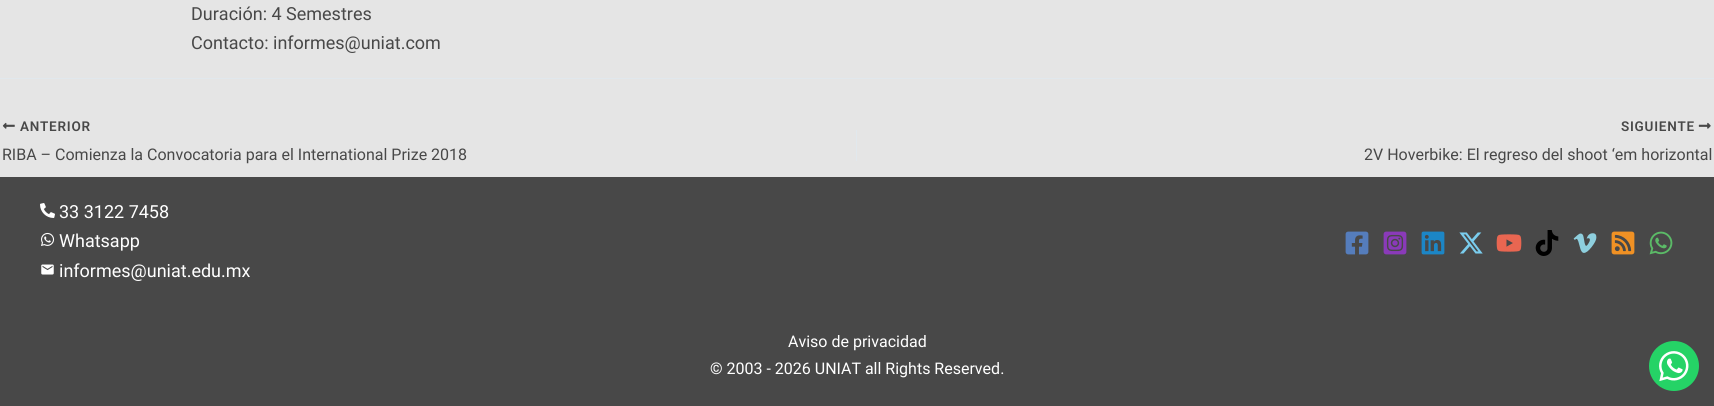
#include <cairo.h>
#include <math.h>
#include <stddef.h>

typedef struct { const char *family; double size; int italic, bold; unsigned color; } style_t;
static cairo_t *ctx;

static void ink(unsigned color) {
    cairo_set_source_rgb(ctx, (color >> 16) / 255.0, (color >> 8 & 255) / 255.0, (color & 255) / 255.0);
}

static void write(double x, double y, const char *s, const style_t *st) {
    cairo_select_font_face(ctx, st->family, st->italic ? CAIRO_FONT_SLANT_ITALIC : CAIRO_FONT_SLANT_NORMAL,
        st->bold ? CAIRO_FONT_WEIGHT_BOLD : CAIRO_FONT_WEIGHT_NORMAL);
    cairo_set_font_size(ctx, st->size);
    ink(st->color);
    cairo_move_to(ctx, x, y);
    cairo_show_text(ctx, s);
}

static void write_spaced(double x, double y, const char *s, double letter, double word) {
    cairo_move_to(ctx, x, y);
    while (*s) {
        char ch[5] = {0};
        int n = 0;
        do ch[n++] = *s++; while ((*s & 0xC0) == 0x80);
        cairo_show_text(ctx, ch);
        cairo_rel_move_to(ctx, letter + word * (*ch == ' '), 0);
    }
}

static void block(double x, double y, double w, double h, unsigned color) {
    ink(color);
    cairo_rectangle(ctx, x, y, w, h);
    cairo_fill(ctx);
}

static void paste(const char *path, double x, double y, double w, double h) {
    cairo_surface_t *image = cairo_image_surface_create_from_png(path);
    cairo_save(ctx);
    cairo_set_source_surface(ctx, image, x, y);
    cairo_rectangle(ctx, x, y, w, h);
    cairo_fill(ctx);
    cairo_restore(ctx);
    cairo_surface_destroy(image);
}

static const style_t s1 = {"Roboto", 18, 0, 0, 0x484848};
static const style_t s2 = {"Roboto", 16, 0, 0, 0x484848};
static const style_t s3 = {"Roboto", 18, 0, 0, 0xffffff};
static const style_t s4 = {"Roboto", 16, 0, 0, 0xffffff};

int main(void) {
    cairo_surface_t *surface = cairo_image_surface_create(CAIRO_FORMAT_RGB24, 1714, 406);
    ctx = cairo_create(surface);
    cairo_font_options_t *options = cairo_font_options_create();
    cairo_font_options_set_hint_metrics(options, CAIRO_HINT_METRICS_OFF);
    cairo_font_options_set_hint_style(options, CAIRO_HINT_STYLE_NONE);
    cairo_set_font_options(ctx, options);
    cairo_set_miter_limit(ctx, 4);
    ink(0xe5e5e5);
    cairo_paint(ctx);
    write(191, 20, "Duración: 4 Semestres", &s1);
    write(191, 49, "Contacto: informes@uniat.com", &s1);
    block(0, 78, 1714, 1, 0xe1e8ed);
    paste("pic1.png", 2, 122, 13, 7);
    cairo_select_font_face(ctx, "Roboto SemiBold", CAIRO_FONT_SLANT_NORMAL, CAIRO_FONT_WEIGHT_NORMAL);
    cairo_set_font_size(ctx, 13.5);
    ink(0x484848);
    write_spaced(20, 131, "ANTERIOR", 0.75, 0);
    write(2, 160, "RIBA – Comienza la Convocatoria para el International Prize 2018", &s2);
    block(856, 130, 1, 31, 0xe1e8ed);
    cairo_select_font_face(ctx, "Roboto SemiBold", CAIRO_FONT_SLANT_NORMAL, CAIRO_FONT_WEIGHT_NORMAL);
    cairo_set_font_size(ctx, 13.5);
    ink(0x484848);
    write_spaced(1621, 131, "SIGUIENTE", 0.75, 0);
    paste("pic2.png", 1698, 122, 13, 7);
    write(1364, 160, "2V Hoverbike: El regreso del shoot ‘em horizontal", &s2);
    block(0, 177, 1714, 229, 0x484848);
    paste("pic3.png", 40, 203, 15, 15);
    write(59, 218, "33 3122 7458", &s3);
    paste("pic4.png", 41, 232, 14, 14);
    write(59, 247, "Whatsapp", &s3);
    paste("pic5.png", 41, 264, 13, 11);
    write(59, 277, "informes@uniat.edu.mx", &s3);
    paste("pic6.png", 1345, 231, 24, 24);
    paste("pic7.png", 1383, 231, 24, 24);
    paste("pic8.png", 1421, 231, 24, 24);
    paste("pic9.png", 1459, 232, 24, 22);
    paste("pic10.png", 1496, 234, 26, 18);
    paste("pic11.png", 1535, 230, 24, 26);
    paste("pic12.png", 1573, 233, 24, 20);
    paste("pic13.png", 1611, 231, 24, 24);
    paste("pic14.png", 1649, 231, 24, 24);
    write(788, 347, "Aviso de privacidad", &s4);
    write(710, 374, "© 2003 - 2026 UNIAT all Rights Reserved.", &s4);
    paste("pic15.png", 1649, 341, 50, 50);
    cairo_surface_write_to_png(surface, "screenshot.png");
    cairo_font_options_destroy(options);
    cairo_destroy(ctx);
    cairo_surface_destroy(surface);
    return 0;
}
